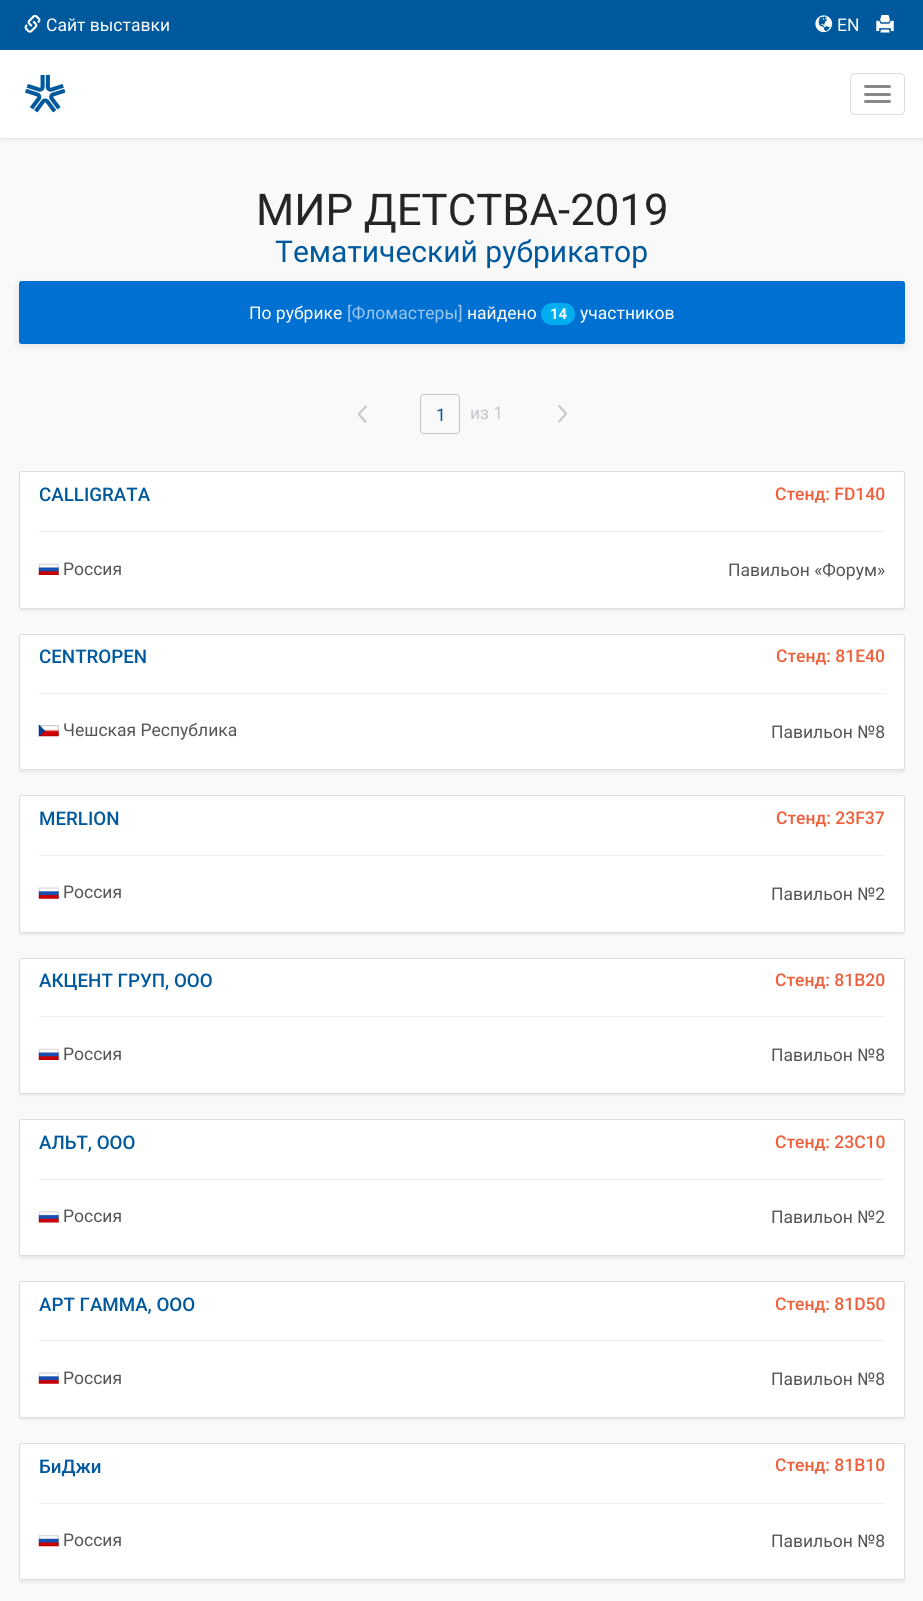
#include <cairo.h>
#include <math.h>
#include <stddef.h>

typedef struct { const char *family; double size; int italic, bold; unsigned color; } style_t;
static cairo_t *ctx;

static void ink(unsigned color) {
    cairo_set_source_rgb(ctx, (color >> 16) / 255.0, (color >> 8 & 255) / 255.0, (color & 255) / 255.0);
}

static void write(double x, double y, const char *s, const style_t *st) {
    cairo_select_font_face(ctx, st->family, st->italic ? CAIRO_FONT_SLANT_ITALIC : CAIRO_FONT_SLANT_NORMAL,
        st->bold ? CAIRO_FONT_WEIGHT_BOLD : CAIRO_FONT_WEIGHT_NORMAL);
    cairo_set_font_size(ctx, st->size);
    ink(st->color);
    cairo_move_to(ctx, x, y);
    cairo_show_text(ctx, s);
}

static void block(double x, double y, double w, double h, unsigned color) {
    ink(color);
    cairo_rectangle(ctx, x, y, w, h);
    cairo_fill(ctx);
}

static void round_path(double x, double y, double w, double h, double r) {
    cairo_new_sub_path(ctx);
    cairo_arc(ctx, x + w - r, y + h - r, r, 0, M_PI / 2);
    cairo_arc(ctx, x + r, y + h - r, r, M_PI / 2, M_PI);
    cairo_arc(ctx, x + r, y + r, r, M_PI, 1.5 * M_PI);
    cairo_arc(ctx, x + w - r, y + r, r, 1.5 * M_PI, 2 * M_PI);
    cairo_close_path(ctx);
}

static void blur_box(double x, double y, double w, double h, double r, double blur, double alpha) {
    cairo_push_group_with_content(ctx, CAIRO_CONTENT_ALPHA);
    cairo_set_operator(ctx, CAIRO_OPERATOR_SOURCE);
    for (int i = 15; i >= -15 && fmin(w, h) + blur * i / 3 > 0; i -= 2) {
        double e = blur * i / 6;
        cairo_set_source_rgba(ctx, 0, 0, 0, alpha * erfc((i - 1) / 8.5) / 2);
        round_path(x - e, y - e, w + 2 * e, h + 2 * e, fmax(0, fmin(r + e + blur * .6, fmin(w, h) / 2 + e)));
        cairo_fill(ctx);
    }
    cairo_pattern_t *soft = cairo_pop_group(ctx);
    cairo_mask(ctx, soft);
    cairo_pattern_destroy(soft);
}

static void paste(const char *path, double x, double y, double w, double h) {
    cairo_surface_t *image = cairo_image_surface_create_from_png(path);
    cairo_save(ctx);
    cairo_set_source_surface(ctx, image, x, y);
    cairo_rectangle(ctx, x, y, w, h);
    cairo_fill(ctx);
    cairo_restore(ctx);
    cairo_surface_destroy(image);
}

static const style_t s1 = {"Roboto", 17.5, 0, 0, 0xffffff};
static const style_t s2 = {"Roboto", 43.75, 0, 0, 0x252525};
static const style_t s3 = {"Roboto", 30, 0, 0, 0x00599d};
static const style_t s4 = {"Roboto", 17.5, 0, 0, 0x99c6ed};
static const style_t s5 = {"Roboto", 15, 0, 1, 0xffffff};
static const style_t s6 = {"Roboto", 17.5, 0, 0, 0x00599d};
static const style_t s7 = {"Roboto", 17.5, 0, 0, 0xc4c7cc};
static const style_t s8 = {"Roboto Medium", 18.75, 0, 0, 0x00599d};
static const style_t s9 = {"Roboto Medium", 17.5, 0, 0, 0xf05f3b};
static const style_t s10 = {"Roboto", 17.5, 0, 0, 0x555555};

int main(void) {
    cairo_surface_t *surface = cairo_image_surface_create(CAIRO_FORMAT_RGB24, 923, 1601);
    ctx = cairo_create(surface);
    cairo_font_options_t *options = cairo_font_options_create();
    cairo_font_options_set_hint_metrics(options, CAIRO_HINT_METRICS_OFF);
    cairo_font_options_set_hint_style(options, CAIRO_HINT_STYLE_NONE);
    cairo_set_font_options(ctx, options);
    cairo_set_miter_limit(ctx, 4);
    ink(0xf9f9f9);
    cairo_paint(ctx);
    ink(0x000000);
    blur_box(0, 1, 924, 139, 0, 3, 0.07);
    block(0, 50, 923, 88, 0xffffff);
    block(0, 138, 923, 1, 0xe7e7e7);
    block(0, 0, 923, 50, 0x00599d);
    paste("pic1.png", 24, 14, 17, 19);
    write(46, 31, "Сайт выставки", &s1);
    paste("pic2.png", 815, 15, 18, 18);
    write(837, 31, "EN", &s1);
    paste("pic3.png", 876, 15, 18, 18);
    paste("pic4.png", 25, 75, 40, 38);
    round_path(850.5, 73.5, 54, 41, 4.5);
    ink(0xdddddd);
    cairo_set_line_width(ctx, 1);
    cairo_stroke(ctx);
    ink(0x888888);
    round_path(864, 85, 27, 3, 1.5);
    cairo_fill(ctx);
    round_path(864, 93, 27, 3, 1.5);
    cairo_fill(ctx);
    round_path(864, 100, 27, 3, 1.5);
    cairo_fill(ctx);
    write(256, 225, "МИР ДЕТСТВА-2019", &s2);
    write(275, 262, "Тематический рубрикатор", &s3);
    ink(0x000000);
    blur_box(19, 284, 886, 62, 2.5, 4, 0.1);
    ink(0x0070d2);
    round_path(19, 281, 886, 63, 2.5);
    cairo_fill(ctx);
    write(249, 319, "По рубрике", &s1);
    write(347, 319, "[Фломастеры]", &s4);
    write(467, 319, "найдено", &s1);
    ink(0x00adee);
    round_path(541, 303, 34, 22, 11);
    cairo_fill(ctx);
    write(550, 319, "14", &s5);
    write(580, 319, "участников", &s1);
    paste("pic5.png", 358, 405, 9, 18);
    round_path(420.5, 394.5, 39, 39, 3.5);
    ink(0xc4c7cc);
    cairo_stroke(ctx);
    write(436, 421, "1", &s6);
    write(470, 419, "из 1", &s7);
    paste("pic6.png", 558, 405, 9, 18);
    ink(0x000000);
    blur_box(19, 474, 886, 137, 2.5, 1, 0.06);
    ink(0xffffff);
    round_path(19.5, 471.5, 885, 137, 2);
    cairo_fill_preserve(ctx);
    ink(0xdddddd);
    cairo_stroke(ctx);
    write(39, 501, "CALLIGRATA", &s8);
    write(775, 500, "Стенд: FD140", &s9);
    block(39, 531, 846, 1, 0xeeeeee);
    paste("pic7.png", 38, 563, 21, 12);
    write(63, 575, "Россия", &s10);
    write(728, 576, "Павильон «Форум»", &s10);
    ink(0x000000);
    blur_box(19, 636, 886, 137, 2.5, 1, 0.06);
    ink(0xffffff);
    round_path(19.5, 634.5, 885, 135, 2);
    cairo_fill_preserve(ctx);
    ink(0xdddddd);
    cairo_stroke(ctx);
    write(39, 663, "CENTROPEN", &s8);
    write(776, 662, "Стенд: 81E40", &s9);
    block(39, 693, 846, 1, 0xeeeeee);
    paste("pic8.png", 38, 725, 21, 12);
    write(63, 736, "Чешская Республика", &s10);
    write(771, 738, "Павильон №8", &s10);
    ink(0x000000);
    blur_box(19, 798, 886, 137, 2.5, 1, 0.06);
    ink(0xffffff);
    round_path(19.5, 795.5, 885, 137, 2);
    cairo_fill_preserve(ctx);
    ink(0xdddddd);
    cairo_stroke(ctx);
    write(39, 825, "MERLION", &s8);
    write(776, 824, "Стенд: 23F37", &s9);
    block(39, 855, 846, 1, 0xeeeeee);
    paste("pic9.png", 38, 887, 21, 12);
    write(63, 898, "Россия", &s10);
    write(771, 900, "Павильон №2", &s10);
    ink(0x000000);
    blur_box(19, 960, 886, 136, 2.5, 1, 0.06);
    ink(0xffffff);
    round_path(19.5, 958.5, 885, 135, 2);
    cairo_fill_preserve(ctx);
    ink(0xdddddd);
    cairo_stroke(ctx);
    write(39, 987, "АКЦЕНТ ГРУП, ООО", &s8);
    write(775, 986, "Стенд: 81B20", &s9);
    block(39, 1016, 846, 1, 0xeeeeee);
    paste("pic7.png", 38, 1048, 21, 12);
    write(63, 1060, "Россия", &s10);
    write(771, 1061, "Павильон №8", &s10);
    ink(0x000000);
    blur_box(19, 1121, 886, 138, 2.5, 1, 0.06);
    ink(0xffffff);
    round_path(19.5, 1119.5, 885, 136, 2);
    cairo_fill_preserve(ctx);
    ink(0xdddddd);
    cairo_stroke(ctx);
    write(39, 1149, "АЛЬТ, ООО", &s8);
    write(775, 1148, "Стенд: 23C10", &s9);
    block(39, 1179, 846, 1, 0xeeeeee);
    paste("pic10.png", 38, 1211, 21, 12);
    write(63, 1222, "Россия", &s10);
    write(771, 1223, "Павильон №2", &s10);
    ink(0x000000);
    blur_box(19, 1284, 886, 136, 2.5, 1, 0.06);
    ink(0xffffff);
    round_path(19.5, 1281.5, 885, 136, 2);
    cairo_fill_preserve(ctx);
    ink(0xdddddd);
    cairo_stroke(ctx);
    write(39, 1311, "АРТ ГАММА, ООО", &s8);
    write(775, 1310, "Стенд: 81D50", &s9);
    block(39, 1340, 846, 1, 0xeeeeee);
    paste("pic9.png", 38, 1372, 21, 12);
    write(63, 1384, "Россия", &s10);
    write(771, 1385, "Павильон №8", &s10);
    ink(0x000000);
    blur_box(19, 1445, 886, 138, 2.5, 1, 0.06);
    ink(0xffffff);
    round_path(19.5, 1443.5, 885, 136, 2);
    cairo_fill_preserve(ctx);
    ink(0xdddddd);
    cairo_stroke(ctx);
    write(39, 1473, "БиДжи", &s8);
    write(775, 1471, "Стенд: 81B10", &s9);
    block(39, 1503, 846, 1, 0xeeeeee);
    paste("pic11.png", 38, 1535, 21, 12);
    write(63, 1546, "Россия", &s10);
    write(771, 1547, "Павильон №8", &s10);
    cairo_surface_write_to_png(surface, "screenshot.png");
    cairo_font_options_destroy(options);
    cairo_destroy(ctx);
    cairo_surface_destroy(surface);
    return 0;
}
